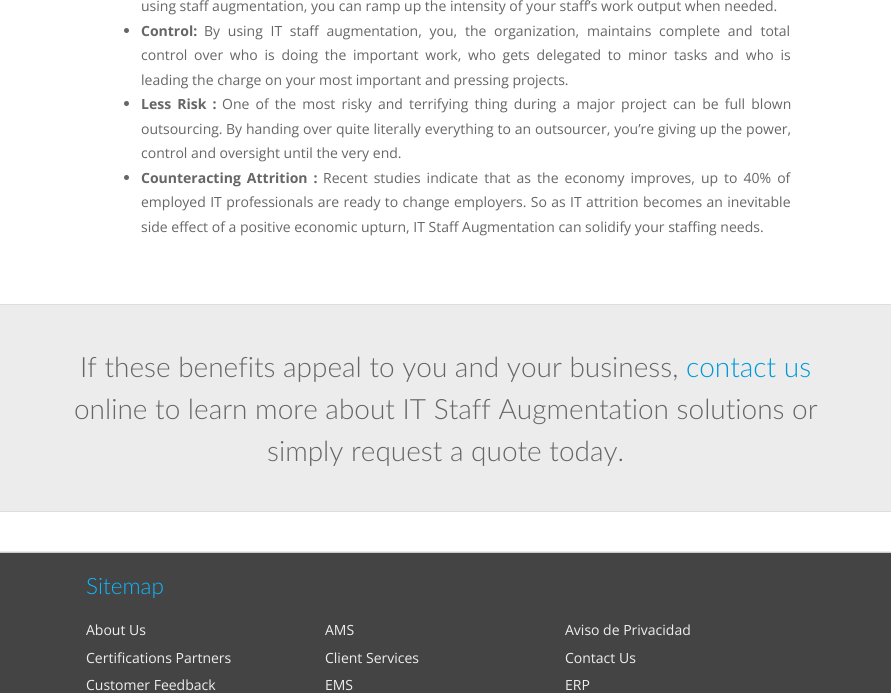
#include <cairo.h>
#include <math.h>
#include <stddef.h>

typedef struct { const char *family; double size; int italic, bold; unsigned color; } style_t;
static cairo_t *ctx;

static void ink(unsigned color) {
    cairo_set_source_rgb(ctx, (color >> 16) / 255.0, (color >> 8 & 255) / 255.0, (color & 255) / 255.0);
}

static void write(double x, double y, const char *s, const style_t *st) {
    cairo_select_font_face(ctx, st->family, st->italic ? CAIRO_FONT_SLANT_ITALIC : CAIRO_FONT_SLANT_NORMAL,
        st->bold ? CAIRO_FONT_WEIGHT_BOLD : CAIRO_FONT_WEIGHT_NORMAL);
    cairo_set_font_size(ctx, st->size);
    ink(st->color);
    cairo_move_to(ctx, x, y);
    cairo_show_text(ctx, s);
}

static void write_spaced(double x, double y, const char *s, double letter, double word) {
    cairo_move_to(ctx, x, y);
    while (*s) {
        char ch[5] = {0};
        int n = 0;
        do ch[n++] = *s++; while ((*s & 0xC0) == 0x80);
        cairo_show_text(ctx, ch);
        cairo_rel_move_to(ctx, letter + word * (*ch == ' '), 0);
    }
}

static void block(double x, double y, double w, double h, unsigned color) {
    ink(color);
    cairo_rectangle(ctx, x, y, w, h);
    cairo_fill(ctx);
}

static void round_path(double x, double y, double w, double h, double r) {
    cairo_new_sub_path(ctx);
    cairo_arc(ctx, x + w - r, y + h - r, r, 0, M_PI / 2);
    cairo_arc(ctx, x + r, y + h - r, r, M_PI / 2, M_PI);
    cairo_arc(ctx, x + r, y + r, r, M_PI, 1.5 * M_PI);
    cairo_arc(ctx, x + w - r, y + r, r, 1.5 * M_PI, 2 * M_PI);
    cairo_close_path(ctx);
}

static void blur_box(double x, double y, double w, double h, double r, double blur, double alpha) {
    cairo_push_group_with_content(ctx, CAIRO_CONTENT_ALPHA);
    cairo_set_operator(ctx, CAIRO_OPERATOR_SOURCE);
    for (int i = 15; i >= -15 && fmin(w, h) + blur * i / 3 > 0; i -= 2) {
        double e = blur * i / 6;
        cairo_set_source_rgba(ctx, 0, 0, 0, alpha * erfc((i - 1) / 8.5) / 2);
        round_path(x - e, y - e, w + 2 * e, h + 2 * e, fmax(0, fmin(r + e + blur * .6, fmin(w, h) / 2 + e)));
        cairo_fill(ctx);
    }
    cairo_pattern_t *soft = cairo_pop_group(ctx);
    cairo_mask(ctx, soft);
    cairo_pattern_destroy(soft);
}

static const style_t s1 = {"Open Sans", 14, 0, 0, 0x666666};
static const style_t s2 = {"Open Sans", 14, 0, 1, 0x666666};
static const style_t s3 = {"Lato Light", 28, 0, 0, 0x666666};
static const style_t s4 = {"Lato Light", 28, 0, 0, 0x0099da};
static const style_t s5 = {"Lato Light", 22.5, 0, 0, 0x0eb7ff};
static const style_t s6 = {"Open Sans", 14, 0, 0, 0xeeeeee};

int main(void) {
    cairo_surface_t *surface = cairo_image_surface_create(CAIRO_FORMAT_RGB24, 891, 693);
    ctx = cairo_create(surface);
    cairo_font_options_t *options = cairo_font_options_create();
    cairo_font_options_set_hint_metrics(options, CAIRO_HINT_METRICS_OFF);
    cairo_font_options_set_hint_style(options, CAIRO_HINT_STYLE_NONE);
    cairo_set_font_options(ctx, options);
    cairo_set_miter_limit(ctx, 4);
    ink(0xffffff);
    cairo_paint(ctx);
    write(141, 11, "using staff augmentation, you can ramp up the intensity of your staff’s work output when needed.", &s1);
    cairo_new_path(ctx);
    cairo_arc(ctx, 126.5, 30.5, 2.5, 0, 2 * M_PI);
    cairo_fill(ctx);
    write(141, 36, "Control:", &s2);
    cairo_select_font_face(ctx, "Open Sans", CAIRO_FONT_SLANT_NORMAL, CAIRO_FONT_WEIGHT_NORMAL);
    write_spaced(204, 36, "By using IT staff augmentation, you, the organization, maintains complete and total", 0, 4.1);
    write_spaced(141, 60, "control over who is doing the important work, who gets delegated to minor tasks and who is", 0, 3.1);
    write(141, 85, "leading the charge on your most important and pressing projects.", &s1);
    cairo_new_path(ctx);
    cairo_arc(ctx, 126.5, 103.5, 2.5, 0, 2 * M_PI);
    cairo_fill(ctx);
    cairo_select_font_face(ctx, "Open Sans", CAIRO_FONT_SLANT_NORMAL, CAIRO_FONT_WEIGHT_BOLD);
    write_spaced(141, 109, "Less Risk :", 0, 2.5);
    cairo_select_font_face(ctx, "Open Sans", CAIRO_FONT_SLANT_NORMAL, CAIRO_FONT_WEIGHT_NORMAL);
    write_spaced(222, 109, "One of the most risky and terrifying thing during a major project can be full blown", 0, 2.5);
    write(141, 134, "outsourcing.", &s1);
    write_spaced(226, 134, "By handing over quite literally everything to an outsourcer, you’re giving up the power,", 0, 0.25);
    write(141, 158, "control and oversight until the very end.", &s1);
    cairo_new_path(ctx);
    cairo_arc(ctx, 126.5, 177.5, 2.5, 0, 2 * M_PI);
    cairo_fill(ctx);
    cairo_select_font_face(ctx, "Open Sans", CAIRO_FONT_SLANT_NORMAL, CAIRO_FONT_WEIGHT_BOLD);
    write_spaced(141, 183, "Counteracting Attrition :", 0, 2.4);
    cairo_select_font_face(ctx, "Open Sans", CAIRO_FONT_SLANT_NORMAL, CAIRO_FONT_WEIGHT_NORMAL);
    write_spaced(323, 183, "Recent studies indicate that as the economy improves, up to 40% of", 0, 2.4);
    write_spaced(141, 207, "employed IT professionals are ready to change employers. So as IT attrition becomes an inevitable", 0, 0.75);
    write(141, 232, "side effect of a positive economic upturn, IT Staff Augmentation can solidify your staffing needs.", &s1);
    block(0, 305, 891, 206, 0xececec);
    block(0, 304, 891, 1, 0xdddddd);
    block(0, 511, 891, 1, 0xdddddd);
    write(80, 377, "If these benefits appeal to you and your business,", &s3);
    write(686, 377, "contact us", &s4);
    write(74, 419, "online to learn more about IT Staff Augmentation solutions or", &s3);
    write(267, 461, "simply request a quote today.", &s3);
    ink(0x000000);
    blur_box(0, 552, 891, 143, 0, 0.5, 0.3);
    block(0, 553, 891, 140, 0x444444);
    block(0, 552, 891, 1, 0xcccccc);
    write(86, 594, "Sitemap", &s5);
    write(86, 635, "About Us", &s6);
    write(325, 635, "AMS", &s6);
    write(565, 635, "Aviso de Privacidad", &s6);
    write(86, 663, "Certifications Partners", &s6);
    write(325, 663, "Client Services", &s6);
    write(565, 663, "Contact Us", &s6);
    write(86, 690, "Customer Feedback", &s6);
    write(325, 690, "EMS", &s6);
    write(565, 690, "ERP", &s6);
    cairo_surface_write_to_png(surface, "screenshot.png");
    cairo_font_options_destroy(options);
    cairo_destroy(ctx);
    cairo_surface_destroy(surface);
    return 0;
}
